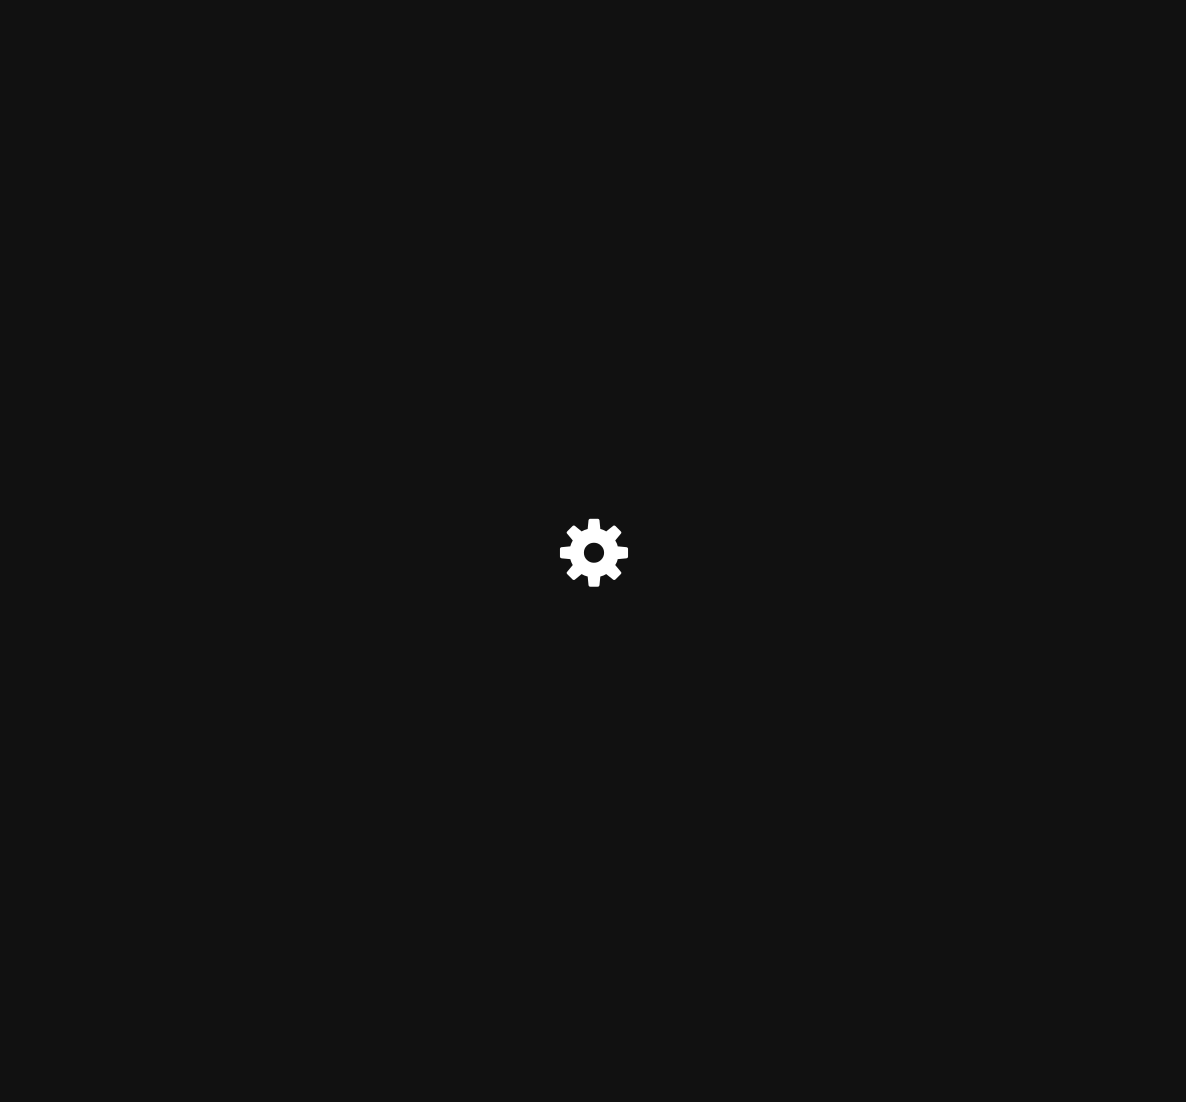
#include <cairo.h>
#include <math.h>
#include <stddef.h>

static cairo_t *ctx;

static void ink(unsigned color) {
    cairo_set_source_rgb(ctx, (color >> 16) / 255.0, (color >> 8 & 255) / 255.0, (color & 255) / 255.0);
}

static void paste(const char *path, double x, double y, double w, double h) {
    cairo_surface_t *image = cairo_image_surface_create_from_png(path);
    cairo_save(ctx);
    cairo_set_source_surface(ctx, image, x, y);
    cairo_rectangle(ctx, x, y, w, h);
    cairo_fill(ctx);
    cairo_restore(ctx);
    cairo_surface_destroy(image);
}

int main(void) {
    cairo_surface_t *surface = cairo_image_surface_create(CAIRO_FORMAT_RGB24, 1186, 1102);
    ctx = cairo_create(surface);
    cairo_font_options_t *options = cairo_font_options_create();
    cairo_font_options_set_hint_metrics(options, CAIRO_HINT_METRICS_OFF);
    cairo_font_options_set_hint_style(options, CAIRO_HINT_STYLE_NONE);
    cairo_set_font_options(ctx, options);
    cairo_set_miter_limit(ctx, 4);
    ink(0x111111);
    cairo_paint(ctx);
    paste("pic1.png", 559, 518, 70, 69);
    cairo_surface_write_to_png(surface, "screenshot.png");
    cairo_font_options_destroy(options);
    cairo_destroy(ctx);
    cairo_surface_destroy(surface);
    return 0;
}
